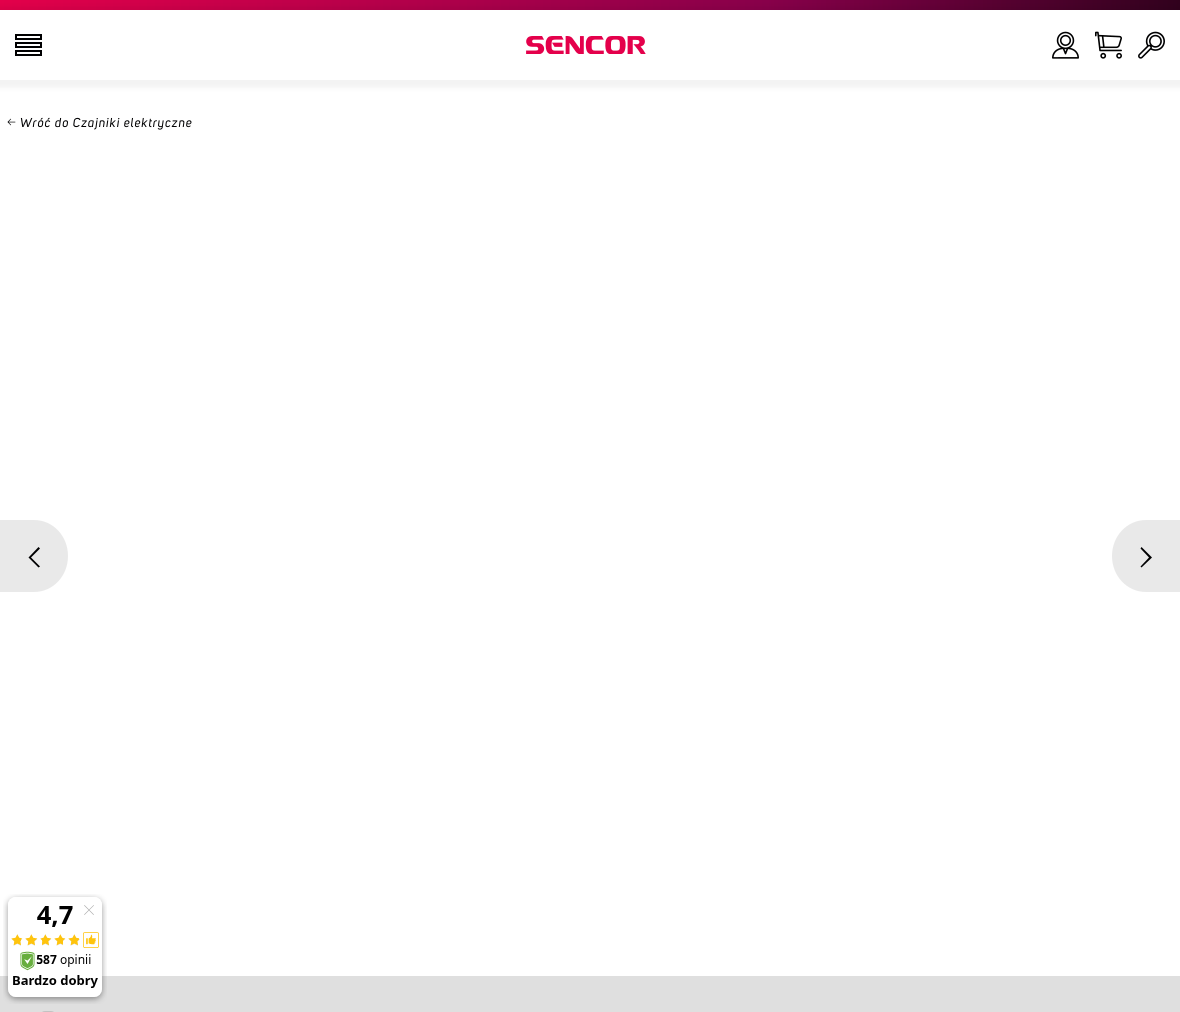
#include <cairo.h>
#include <math.h>
#include <stddef.h>

static cairo_t *ctx;

static void ink(unsigned color) {
    cairo_set_source_rgb(ctx, (color >> 16) / 255.0, (color >> 8 & 255) / 255.0, (color & 255) / 255.0);
}

static void write_spaced(double x, double y, const char *s, double letter, double word) {
    cairo_move_to(ctx, x, y);
    while (*s) {
        char ch[5] = {0};
        int n = 0;
        do ch[n++] = *s++; while ((*s & 0xC0) == 0x80);
        cairo_show_text(ctx, ch);
        cairo_rel_move_to(ctx, letter + word * (*ch == ' '), 0);
    }
}

static void block(double x, double y, double w, double h, unsigned color) {
    ink(color);
    cairo_rectangle(ctx, x, y, w, h);
    cairo_fill(ctx);
}

static void round_path(double x, double y, double w, double h, double r) {
    cairo_new_sub_path(ctx);
    cairo_arc(ctx, x + w - r, y + h - r, r, 0, M_PI / 2);
    cairo_arc(ctx, x + r, y + h - r, r, M_PI / 2, M_PI);
    cairo_arc(ctx, x + r, y + r, r, M_PI, 1.5 * M_PI);
    cairo_arc(ctx, x + w - r, y + r, r, 1.5 * M_PI, 2 * M_PI);
    cairo_close_path(ctx);
}

static void blur_box(double x, double y, double w, double h, double r, double blur, double alpha) {
    cairo_push_group_with_content(ctx, CAIRO_CONTENT_ALPHA);
    cairo_set_operator(ctx, CAIRO_OPERATOR_SOURCE);
    for (int i = 15; i >= -15 && fmin(w, h) + blur * i / 3 > 0; i -= 2) {
        double e = blur * i / 6;
        cairo_set_source_rgba(ctx, 0, 0, 0, alpha * erfc((i - 1) / 8.5) / 2);
        round_path(x - e, y - e, w + 2 * e, h + 2 * e, fmax(0, fmin(r + e + blur * .6, fmin(w, h) / 2 + e)));
        cairo_fill(ctx);
    }
    cairo_pattern_t *soft = cairo_pop_group(ctx);
    cairo_mask(ctx, soft);
    cairo_pattern_destroy(soft);
}

static void paste(const char *path, double x, double y, double w, double h) {
    cairo_surface_t *image = cairo_image_surface_create_from_png(path);
    cairo_save(ctx);
    cairo_set_source_surface(ctx, image, x, y);
    cairo_rectangle(ctx, x, y, w, h);
    cairo_fill(ctx);
    cairo_restore(ctx);
    cairo_surface_destroy(image);
}

int main(void) {
    cairo_surface_t *surface = cairo_image_surface_create(CAIRO_FORMAT_RGB24, 1180, 1012);
    ctx = cairo_create(surface);
    cairo_font_options_t *options = cairo_font_options_create();
    cairo_font_options_set_hint_metrics(options, CAIRO_HINT_METRICS_OFF);
    cairo_font_options_set_hint_style(options, CAIRO_HINT_STYLE_NONE);
    cairo_set_font_options(ctx, options);
    cairo_set_miter_limit(ctx, 4);
    cairo_pattern_t *gradient;
    ink(0xdfdfdf);
    cairo_paint(ctx);
    gradient = cairo_pattern_create_linear(1180, 5, 0, 5);
    cairo_pattern_add_color_stop_rgba(gradient, 0, 0.192, 0.004, 0.114, 1);
    cairo_pattern_add_color_stop_rgba(gradient, 0.35, 0.533, 0, 0.29, 1);
    cairo_pattern_add_color_stop_rgba(gradient, 1, 0.89, 0, 0.29, 1);
    cairo_set_source(ctx, gradient);
    cairo_pattern_destroy(gradient);
    cairo_rectangle(ctx, 0, 0, 1180, 10);
    cairo_fill(ctx);
    block(0, 82, 1180, 894, 0xffffff);
    ink(0x000001);
    blur_box(-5, 6, 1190, 82, 0, 2.5, 0.05);
    block(0, 10, 1180, 70, 0xffffff);
    block(0, 80, 1180, 2, 0xf3f3f3);
    cairo_rectangle(ctx, 16, 43, 25, 4);
    ink(0x000001);
    cairo_stroke(ctx);
    cairo_rectangle(ctx, 16, 35, 25, 4);
    cairo_stroke(ctx);
    cairo_rectangle(ctx, 16, 51, 25, 4);
    cairo_stroke(ctx);
    paste("pic1.png", 526, 36, 120, 18);
    paste("pic2.png", 1052, 31, 27, 28);
    paste("pic3.png", 1095, 31, 27, 28);
    paste("pic4.png", 1138, 31, 27, 28);
    paste("pic5.png", 7, 118, 9, 8);
    cairo_select_font_face(ctx, "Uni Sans", CAIRO_FONT_SLANT_ITALIC, CAIRO_FONT_WEIGHT_NORMAL);
    cairo_set_font_size(ctx, 12.75);
    write_spaced(20, 127, "Wróć do Czajniki elektryczne", 0.8, 0);
    ink(0xe9e9e9);
    cairo_new_path(ctx);
    cairo_move_to(ctx, 0, 520);
    cairo_line_to(ctx, 34, 520);
    cairo_curve_to(ctx, 53, 520, 68, 536, 68, 556);
    cairo_curve_to(ctx, 68, 576, 53, 592, 34, 592);
    cairo_line_to(ctx, 0, 592);
    cairo_close_path(ctx);
    cairo_fill(ctx);
    ink(0x000001);
    cairo_new_path(ctx);
    cairo_move_to(ctx, 38.5, 567.5);
    cairo_line_to(ctx, 28.5, 557.5);
    cairo_line_to(ctx, 38.5, 547);
    cairo_line_to(ctx, 40, 548.5);
    cairo_line_to(ctx, 31, 557.5);
    cairo_line_to(ctx, 40, 566.5);
    cairo_close_path(ctx);
    cairo_fill(ctx);
    ink(0xe9e9e9);
    cairo_new_path(ctx);
    cairo_move_to(ctx, 1146, 520);
    cairo_line_to(ctx, 1180, 520);
    cairo_line_to(ctx, 1180, 592);
    cairo_line_to(ctx, 1146, 592);
    cairo_curve_to(ctx, 1127, 592, 1112, 576, 1112, 556);
    cairo_curve_to(ctx, 1112, 536, 1127, 520, 1146, 520);
    cairo_close_path(ctx);
    cairo_fill(ctx);
    ink(0x000001);
    cairo_new_path(ctx);
    cairo_move_to(ctx, 1141.5, 547);
    cairo_line_to(ctx, 1152, 557.5);
    cairo_line_to(ctx, 1141.5, 567.5);
    cairo_line_to(ctx, 1140.5, 566.5);
    cairo_line_to(ctx, 1149, 557.5);
    cairo_line_to(ctx, 1140.5, 548.5);
    cairo_close_path(ctx);
    cairo_fill(ctx);
    round_path(40.5, 1011.5, 15, 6, 4.5);
    ink(0xc3c2c2);
    cairo_set_line_width(ctx, 1);
    cairo_stroke(ctx);
    paste("pic6.png", 3, 894, 104, 110);
    cairo_surface_write_to_png(surface, "screenshot.png");
    cairo_font_options_destroy(options);
    cairo_destroy(ctx);
    cairo_surface_destroy(surface);
    return 0;
}
